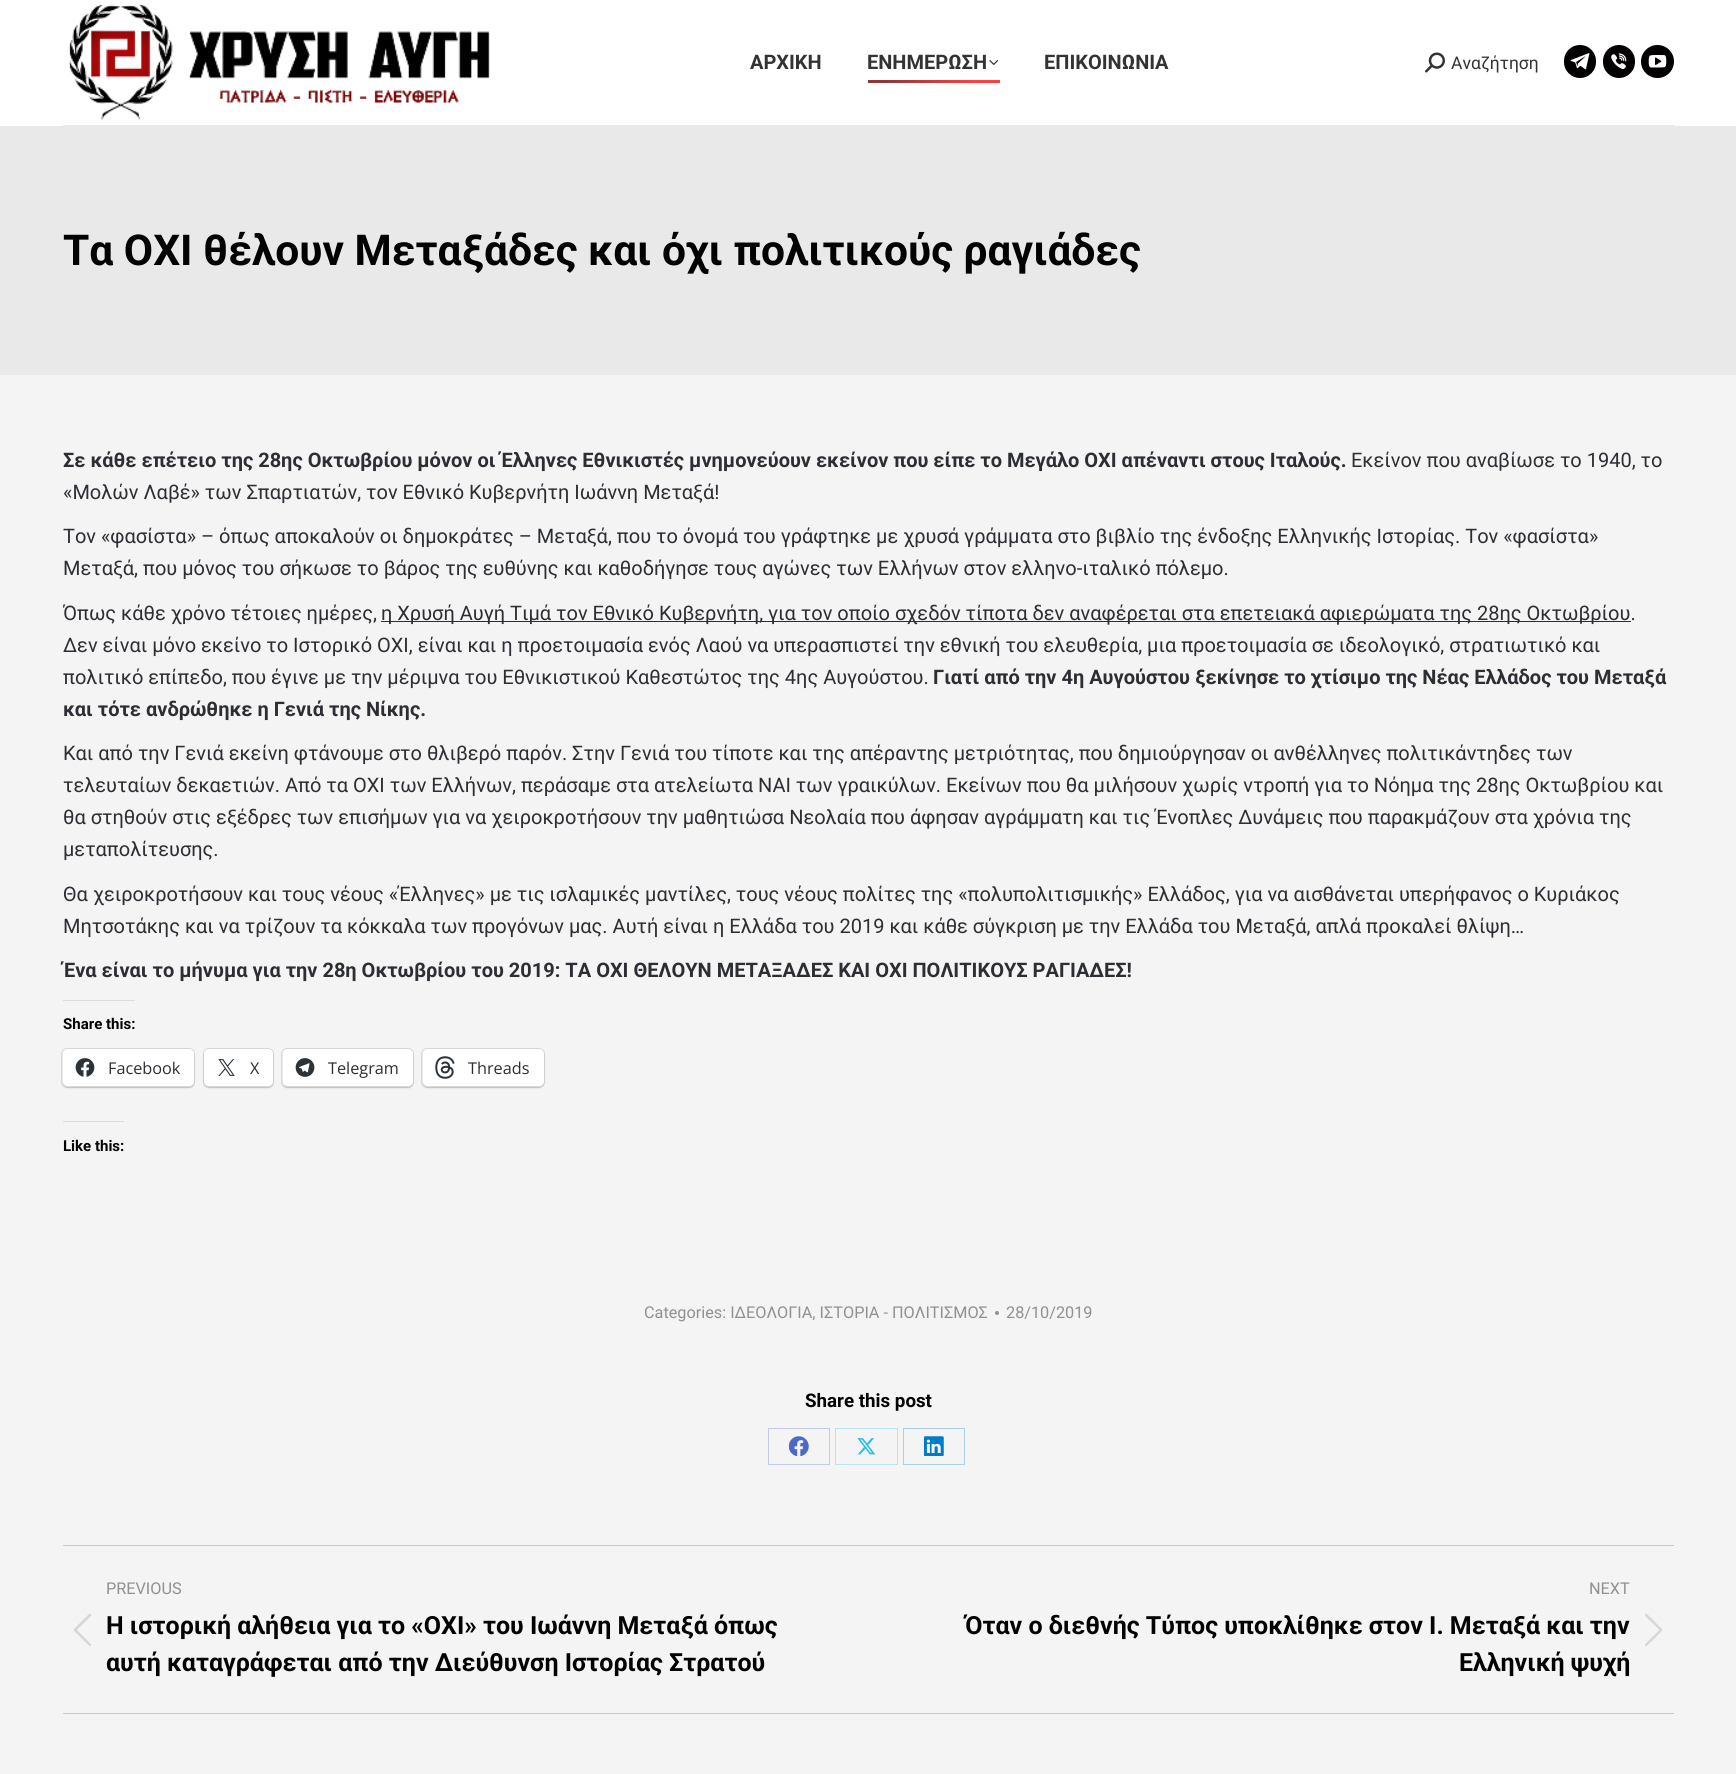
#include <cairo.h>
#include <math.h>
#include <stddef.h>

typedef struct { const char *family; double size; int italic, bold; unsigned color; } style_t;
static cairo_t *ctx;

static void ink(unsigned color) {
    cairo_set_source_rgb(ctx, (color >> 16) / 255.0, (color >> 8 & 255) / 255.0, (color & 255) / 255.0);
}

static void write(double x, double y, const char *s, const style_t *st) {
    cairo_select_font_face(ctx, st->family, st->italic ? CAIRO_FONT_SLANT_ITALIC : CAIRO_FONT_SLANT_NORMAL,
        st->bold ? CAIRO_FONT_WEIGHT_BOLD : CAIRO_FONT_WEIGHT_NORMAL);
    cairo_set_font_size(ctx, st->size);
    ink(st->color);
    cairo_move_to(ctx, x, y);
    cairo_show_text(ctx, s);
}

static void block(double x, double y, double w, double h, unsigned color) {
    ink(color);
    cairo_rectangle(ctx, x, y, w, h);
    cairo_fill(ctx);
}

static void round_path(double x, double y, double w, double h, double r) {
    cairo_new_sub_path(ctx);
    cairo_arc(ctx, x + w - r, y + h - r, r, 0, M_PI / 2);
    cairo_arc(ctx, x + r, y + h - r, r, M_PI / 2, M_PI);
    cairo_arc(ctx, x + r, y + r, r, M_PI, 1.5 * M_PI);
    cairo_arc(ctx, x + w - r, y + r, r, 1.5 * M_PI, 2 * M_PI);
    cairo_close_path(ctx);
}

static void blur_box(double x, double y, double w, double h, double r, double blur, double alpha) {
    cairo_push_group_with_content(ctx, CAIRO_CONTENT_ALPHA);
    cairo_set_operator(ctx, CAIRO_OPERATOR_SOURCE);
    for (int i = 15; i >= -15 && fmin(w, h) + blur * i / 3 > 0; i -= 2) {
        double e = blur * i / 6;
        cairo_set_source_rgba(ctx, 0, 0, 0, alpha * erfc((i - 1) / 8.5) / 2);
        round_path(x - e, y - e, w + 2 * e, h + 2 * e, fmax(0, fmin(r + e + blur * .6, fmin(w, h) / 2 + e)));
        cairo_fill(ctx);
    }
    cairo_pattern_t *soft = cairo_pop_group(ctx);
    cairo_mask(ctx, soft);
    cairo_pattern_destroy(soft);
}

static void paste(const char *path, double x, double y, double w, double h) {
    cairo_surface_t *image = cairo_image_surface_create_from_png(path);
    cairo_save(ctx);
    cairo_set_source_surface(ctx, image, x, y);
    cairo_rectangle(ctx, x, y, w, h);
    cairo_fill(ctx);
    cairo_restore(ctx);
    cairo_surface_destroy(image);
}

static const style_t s1 = {"Roboto", 20, 0, 1, 0x333333};
static const style_t s2 = {"Roboto", 17.5, 0, 0, 0x333333};
static const style_t s3 = {"Roboto", 42.5, 0, 1, 0x020202};
static const style_t s4 = {"Roboto", 20, 0, 1, 0x2c2e33};
static const style_t s5 = {"Roboto", 20, 0, 0, 0x2c2e33};
static const style_t s6 = {"Roboto", 15, 0, 1, 0x020202};
static const style_t s7 = {"Open Sans", 16.25, 0, 0, 0x2c2e33};
static const style_t s8 = {"Roboto", 16.25, 0, 0, 0x8f9093};
static const style_t s9 = {"Roboto", 18.75, 0, 1, 0x020202};
static const style_t s10 = {"Roboto", 25, 0, 1, 0x020202};

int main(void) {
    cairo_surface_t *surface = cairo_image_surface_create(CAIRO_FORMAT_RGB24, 1736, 1774);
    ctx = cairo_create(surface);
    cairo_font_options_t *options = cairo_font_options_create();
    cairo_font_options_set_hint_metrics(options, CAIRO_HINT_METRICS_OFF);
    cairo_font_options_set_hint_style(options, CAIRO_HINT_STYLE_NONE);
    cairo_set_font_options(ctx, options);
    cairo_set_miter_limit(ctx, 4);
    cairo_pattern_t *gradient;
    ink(0xf4f4f4);
    cairo_paint(ctx);
    block(0, 0, 1736, 126, 0xffffff);
    paste("pic1.png", 68, 4, 422, 117);
    write(750, 69, "ΑΡΧΙΚΗ", &s1);
    write(867, 69, "ΕΝΗΜΕΡΩΣΗ", &s1);
    paste("pic2.png", 989, 60, 10, 5);
    gradient = cairo_pattern_create_linear(1000, 81, 868, 81);
    cairo_pattern_add_color_stop_rgba(gradient, 0.19, 1, 0.251, 0.251, 1);
    cairo_pattern_add_color_stop_rgba(gradient, 0.87, 0.573, 0.212, 0.212, 1);
    cairo_set_source(ctx, gradient);
    cairo_pattern_destroy(gradient);
    cairo_rectangle(ctx, 868, 80, 132, 3);
    cairo_fill(ctx);
    write(1044, 69, "ΕΠΙΚΟΙΝΩΝΙΑ", &s1);
    paste("pic3.png", 1425, 52, 20, 21);
    write(1451, 69, "Αναζήτηση", &s2);
    ink(0x020000);
    round_path(1564, 45, 32, 33, 16);
    cairo_fill(ctx);
    paste("pic4.png", 1570, 53, 20, 17);
    round_path(1603, 45, 32, 33, 16);
    cairo_fill(ctx);
    paste("pic5.png", 1611, 53, 16, 16);
    cairo_arc(ctx, 1657.5, 61.5, 16.5, 0, 2 * M_PI);
    cairo_fill(ctx);
    paste("pic6.png", 1648, 55, 19, 13);
    block(63, 125, 1611, 1, 0xe9e9e9);
    block(0, 126, 1736, 249, 0xe9e9e9);
    write(63, 265, "Tα OXI θέλουν Μεταξάδες και όχι πολιτικούς ραγιάδες", &s3);
    write(63, 467, "Σε κάθε επέτειο της 28ης Οκτωβρίου μόνον οι Έλληνες Εθνικιστές μνημονεύουν εκείνον που είπε το Μεγάλο ΟΧΙ απέναντι στους Ιταλούς.", &s4);
    write(1351, 467, "Εκείνον που αναβίωσε το 1940, το", &s5);
    write(63, 499, "«Μολών Λαβέ» των Σπαρτιατών, τον Εθνικό Κυβερνήτη Ιωάννη Μεταξά!", &s5);
    write(63, 543, "Τον «φασίστα» – όπως αποκαλούν οι δημοκράτες – Μεταξά, που το όνομά του γράφτηκε με χρυσά γράμματα στο βιβλίο της ένδοξης Ελληνικής Ιστορίας. Τον «φασίστα»", &s5);
    write(63, 575, "Μεταξά, που μόνος του σήκωσε το βάρος της ευθύνης και καθοδήγησε τους αγώνες των Ελλήνων στον ελληνο-ιταλικό πόλεμο.", &s5);
    write(63, 620, "Όπως κάθε χρόνο τέτοιες ημέρες,", &s5);
    block(381, 621, 1250, 1, 0x2c2e33);
    write(381, 620, "η Χρυσή Αυγή Τιμά τον Εθνικό Κυβερνήτη, για τον οποίο σχεδόν τίποτα δεν αναφέρεται στα επετειακά αφιερώματα της 28ης Οκτωβρίου.", &s5);
    write(63, 652, "Δεν είναι μόνο εκείνο το Ιστορικό ΟΧΙ, είναι και η προετοιμασία ενός Λαού να υπερασπιστεί την εθνική του ελευθερία, μια προετοιμασία σε ιδεολογικό, στρατιωτικό και", &s5);
    write(63, 684, "πολιτικό επίπεδο, που έγινε με την μέριμνα του Εθνικιστικού Καθεστώτος της 4ης Αυγούστου.", &s5);
    write(933, 684, "Γιατί από την 4η Αυγούστου ξεκίνησε το χτίσιμο της Νέας Ελλάδος του Μεταξά", &s4);
    write(63, 716, "και τότε ανδρώθηκε η Γενιά της Νίκης.", &s4);
    write(63, 760, "Και από την Γενιά εκείνη φτάνουμε στο θλιβερό παρόν. Στην Γενιά του τίποτε και της απέραντης μετριότητας, που δημιούργησαν οι ανθέλληνες πολιτικάντηδες των", &s5);
    write(63, 792, "τελευταίων δεκαετιών. Από τα ΟΧΙ των Ελλήνων, περάσαμε στα ατελείωτα ΝΑΙ των γραικύλων. Εκείνων που θα μιλήσουν χωρίς ντροπή για το Νόημα της 28ης Οκτωβρίου και", &s5);
    write(63, 824, "θα στηθούν στις εξέδρες των επισήμων για να χειροκροτήσουν την μαθητιώσα Νεολαία που άφησαν αγράμματη και τις Ένοπλες Δυνάμεις που παρακμάζουν στα χρόνια της", &s5);
    write(63, 856, "μεταπολίτευσης.", &s5);
    write(63, 901, "Θα χειροκροτήσουν και τους νέους «Έλληνες» με τις ισλαμικές μαντίλες, τους νέους πολίτες της «πολυπολιτισμικής» Ελλάδος, για να αισθάνεται υπερήφανος ο Κυριάκος", &s5);
    write(63, 933, "Μητσοτάκης και να τρίζουν τα κόκκαλα των προγόνων μας. Αυτή είναι η Ελλάδα του 2019 και κάθε σύγκριση με την Ελλάδα του Μεταξά, απλά προκαλεί θλίψη…", &s5);
    write(63, 977, "Ένα είναι το μήνυμα για την 28η Οκτωβρίου του 2019: ΤΑ ΟΧΙ ΘΕΛΟΥΝ ΜΕΤΑΞΑΔΕΣ ΚΑΙ ΟΧΙ ΠΟΛΙΤΙΚΟΥΣ ΡΑΓΙΑΔΕΣ!", &s4);
    block(63, 1000, 72, 1, 0xdcdcde);
    write(63, 1029, "Share this:", &s6);
    round_path(61.5, 1048.5, 133, 39, 5.5);
    ink(0xd7d7d7);
    cairo_set_line_width(ctx, 1);
    cairo_stroke(ctx);
    ink(0x000000);
    blur_box(63, 1050, 131, 38, 5, 1, 0.12);
    ink(0xffffff);
    round_path(63, 1049, 131, 37, 5);
    cairo_fill(ctx);
    paste("pic7.png", 75, 1058, 20, 19);
    write(108, 1074, "Facebook", &s7);
    round_path(203.5, 1048.5, 70, 39, 5.5);
    ink(0xd7d7d7);
    cairo_stroke(ctx);
    ink(0x000000);
    blur_box(204, 1050, 69, 38, 5, 1, 0.12);
    ink(0xffffff);
    round_path(204, 1049, 69, 37, 5);
    cairo_fill(ctx);
    paste("pic8.png", 218, 1059, 17, 17);
    write(250, 1074, "X", &s7);
    round_path(281.5, 1048.5, 132, 39, 5.5);
    ink(0xd7d7d7);
    cairo_stroke(ctx);
    ink(0x000000);
    blur_box(283, 1050, 130, 38, 5, 1, 0.12);
    ink(0xffffff);
    round_path(283, 1049, 130, 37, 5);
    cairo_fill(ctx);
    paste("pic9.png", 295, 1058, 20, 19);
    write(328, 1074, "Telegram", &s7);
    round_path(421.5, 1048.5, 123, 39, 5.5);
    ink(0xd7d7d7);
    cairo_stroke(ctx);
    ink(0x000000);
    blur_box(423, 1050, 121, 38, 5, 1, 0.12);
    ink(0xffffff);
    round_path(423, 1049, 121, 37, 5);
    cairo_fill(ctx);
    paste("pic10.png", 435, 1056, 20, 23);
    write(468, 1074, "Threads", &s7);
    block(63, 1121, 61, 1, 0xdcdcde);
    write(63, 1151, "Like this:", &s6);
    write(644, 1318, "Categories: ΙΔΕΟΛΟΓΙΑ, ΙΣΤΟΡΙΑ - ΠΟΛΙΤΙΣΜΟΣ", &s8);
    cairo_new_path(ctx);
    cairo_arc(ctx, 997, 1313, 2, 0, 2 * M_PI);
    cairo_fill(ctx);
    write(1006, 1318, "28/10/2019", &s8);
    write(805, 1407, "Share this post", &s9);
    cairo_rectangle(ctx, 768.5, 1428.5, 61, 36);
    ink(0xc2cae7);
    cairo_stroke(ctx);
    paste("pic11.png", 789, 1436, 20, 20);
    cairo_rectangle(ctx, 835.5, 1428.5, 62, 36);
    ink(0xb7e4f1);
    cairo_stroke(ctx);
    paste("pic12.png", 857, 1438, 19, 17);
    cairo_rectangle(ctx, 903.5, 1428.5, 61, 36);
    ink(0xabd0e7);
    cairo_stroke(ctx);
    paste("pic13.png", 924, 1436, 20, 20);
    block(63, 1545, 1611, 1, 0xc3cad4);
    block(63, 1713, 1611, 1, 0xc3cad4);
    write(106, 1594, "PREVIOUS", &s8);
    paste("pic14.png", 73, 1614, 19, 32);
    write(106, 1634, "Η ιστορική αλήθεια για το «ΟΧΙ» του Ιωάννη Μεταξά όπως", &s10);
    write(106, 1671, "αυτή καταγράφεται από την Διεύθυνση Ιστορίας Στρατού", &s10);
    write(1589, 1594, "NEXT", &s8);
    write(965, 1634, "Όταν ο διεθνής Τύπος υποκλίθηκε στον Ι. Μεταξά και την", &s10);
    write(1459, 1671, "Ελληνική ψυχή", &s10);
    paste("pic15.png", 1645, 1613, 18, 33);
    cairo_surface_write_to_png(surface, "screenshot.png");
    cairo_font_options_destroy(options);
    cairo_destroy(ctx);
    cairo_surface_destroy(surface);
    return 0;
}
